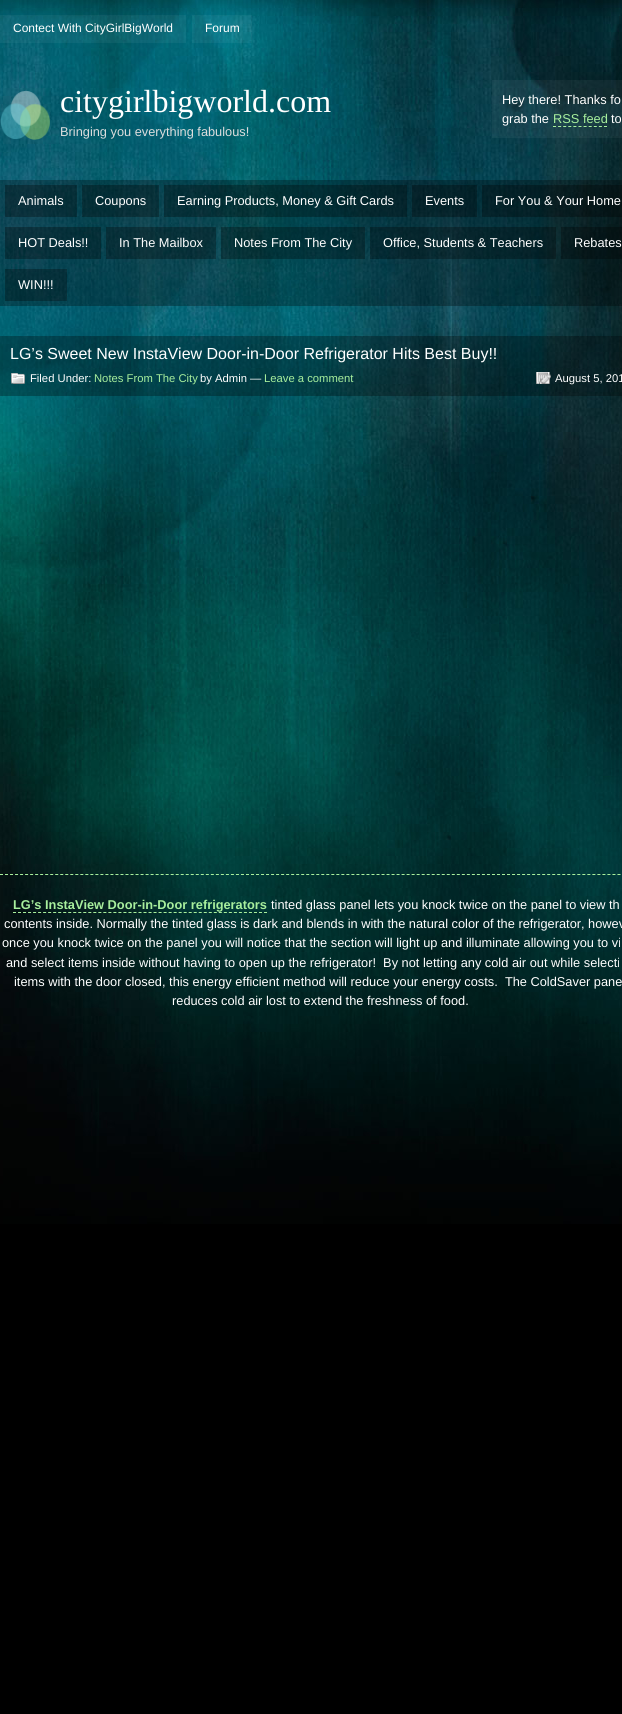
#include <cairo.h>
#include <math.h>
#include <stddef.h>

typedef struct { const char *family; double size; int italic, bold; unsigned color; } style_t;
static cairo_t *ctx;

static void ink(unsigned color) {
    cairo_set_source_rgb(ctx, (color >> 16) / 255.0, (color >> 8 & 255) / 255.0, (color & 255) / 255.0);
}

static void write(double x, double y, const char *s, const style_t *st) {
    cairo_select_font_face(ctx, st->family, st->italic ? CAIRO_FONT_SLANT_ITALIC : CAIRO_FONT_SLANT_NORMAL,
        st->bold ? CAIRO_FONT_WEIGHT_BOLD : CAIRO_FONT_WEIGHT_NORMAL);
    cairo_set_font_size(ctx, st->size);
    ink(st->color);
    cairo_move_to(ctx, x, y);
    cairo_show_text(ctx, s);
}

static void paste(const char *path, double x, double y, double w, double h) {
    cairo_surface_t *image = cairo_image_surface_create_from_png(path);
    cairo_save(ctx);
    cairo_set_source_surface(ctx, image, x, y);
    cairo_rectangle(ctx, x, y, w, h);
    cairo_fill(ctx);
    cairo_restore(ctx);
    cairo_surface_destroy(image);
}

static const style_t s1 = {"Liberation Sans", 12, 0, 0, 0xffffff};
static const style_t s2 = {"Liberation Serif", 32, 0, 0, 0xffffff};
static const style_t s3 = {"Liberation Sans", 12.8, 0, 0, 0xdddddd};
static const style_t s4 = {"Liberation Sans", 12.8, 0, 0, 0xffffff};
static const style_t s5 = {"Liberation Sans", 12.8, 0, 0, 0xa8ef9d};
static const style_t s6 = {"Liberation Sans", 16, 0, 0, 0xffffff};
static const style_t s7 = {"Liberation Sans", 11.25, 0, 0, 0xffffff};
static const style_t s8 = {"Liberation Sans", 11.25, 0, 0, 0xa8ef9d};
static const style_t s9 = {"Liberation Sans", 12.8, 0, 1, 0xa8ef9d};

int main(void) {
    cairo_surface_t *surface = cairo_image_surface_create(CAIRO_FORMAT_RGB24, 622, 1714);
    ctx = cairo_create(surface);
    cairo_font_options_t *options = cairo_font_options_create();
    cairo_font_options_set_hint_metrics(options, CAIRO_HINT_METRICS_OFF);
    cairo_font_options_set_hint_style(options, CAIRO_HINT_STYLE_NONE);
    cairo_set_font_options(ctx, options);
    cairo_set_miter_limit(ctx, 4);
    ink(0x000000);
    cairo_paint(ctx);
    paste("pic1.png", 0, 0, 622, 1224);
    cairo_set_source_rgba(ctx, 1, 1, 1, 0.05);
    cairo_rectangle(ctx, 0, 15, 186, 28);
    cairo_fill(ctx);
    write(13, 32, "Contect With CityGirlBigWorld", &s1);
    cairo_set_source_rgba(ctx, 1, 1, 1, 0.05);
    cairo_rectangle(ctx, 192, 15, 60, 28);
    cairo_fill(ctx);
    write(205, 32, "Forum", &s1);
    paste("pic2.png", 0, 90, 50, 50);
    write(60, 112, "citygirlbigworld.com", &s2);
    write(60, 136, "Bringing you everything fabulous!", &s3);
    cairo_set_source_rgba(ctx, 1, 1, 1, 0.05);
    cairo_rectangle(ctx, 492, 80, 130, 58);
    cairo_fill(ctx);
    write(502, 104, "Hey there! Thanks fo", &s4);
    write(502, 123, "grab the", &s4);
    write(553, 123, "RSS feed", &s5);
    cairo_new_path(ctx);
    cairo_move_to(ctx, 553, 126.5);
    cairo_line_to(ctx, 607, 126.5);
    cairo_set_line_width(ctx, 1);
    cairo_set_dash(ctx, (double[]){3, 2.1}, 2, 0);
    cairo_stroke(ctx);
    write(611, 123, "to", &s4);
    cairo_set_source_rgba(ctx, 0, 0, 0, 0.3);
    cairo_rectangle(ctx, 0, 180, 622, 126);
    cairo_fill(ctx);
    cairo_rectangle(ctx, 5, 185, 72, 32);
    cairo_fill(ctx);
    write(18, 205, "Animals", &s4);
    cairo_set_source_rgba(ctx, 0, 0, 0, 0.3);
    cairo_rectangle(ctx, 82, 185, 77, 32);
    cairo_fill(ctx);
    write(95, 205, "Coupons", &s4);
    cairo_set_source_rgba(ctx, 0, 0, 0, 0.3);
    cairo_rectangle(ctx, 164, 185, 243, 32);
    cairo_fill(ctx);
    write(177, 205, "Earning Products, Money & Gift Cards", &s4);
    cairo_set_source_rgba(ctx, 0, 0, 0, 0.3);
    cairo_rectangle(ctx, 412, 185, 65, 32);
    cairo_fill(ctx);
    write(425, 205, "Events", &s4);
    cairo_set_source_rgba(ctx, 0, 0, 0, 0.3);
    cairo_rectangle(ctx, 482, 185, 140, 32);
    cairo_fill(ctx);
    write(495, 205, "For You & Your Home", &s4);
    cairo_set_source_rgba(ctx, 0, 0, 0, 0.3);
    cairo_rectangle(ctx, 5, 227, 96, 32);
    cairo_fill(ctx);
    write(18, 247, "HOT Deals!!", &s4);
    cairo_set_source_rgba(ctx, 0, 0, 0, 0.3);
    cairo_rectangle(ctx, 106, 227, 110, 32);
    cairo_fill(ctx);
    write(119, 247, "In The Mailbox", &s4);
    cairo_set_source_rgba(ctx, 0, 0, 0, 0.3);
    cairo_rectangle(ctx, 221, 227, 144, 32);
    cairo_fill(ctx);
    write(234, 247, "Notes From The City", &s4);
    cairo_set_source_rgba(ctx, 0, 0, 0, 0.3);
    cairo_rectangle(ctx, 370, 227, 186, 32);
    cairo_fill(ctx);
    write(383, 247, "Office, Students & Teachers", &s4);
    cairo_set_source_rgba(ctx, 0, 0, 0, 0.3);
    cairo_rectangle(ctx, 561, 227, 61, 32);
    cairo_fill(ctx);
    write(574, 247, "Rebates", &s4);
    cairo_set_source_rgba(ctx, 0, 0, 0, 0.3);
    cairo_rectangle(ctx, 5, 269, 62, 32);
    cairo_fill(ctx);
    write(18, 289, "WIN!!!", &s4);
    cairo_set_source_rgba(ctx, 0, 0, 0, 0.3);
    cairo_rectangle(ctx, 0, 336, 622, 60);
    cairo_fill(ctx);
    write(10, 359, "LG’s Sweet New InstaView Door-in-Door Refrigerator Hits Best Buy!!", &s6);
    paste("pic3.png", 11, 373, 14, 11);
    write(30, 382, "Filed Under:", &s7);
    write(94, 382, "Notes From The City", &s8);
    write(200, 382, "by Admin —", &s7);
    write(264, 382, "Leave a comment", &s8);
    paste("pic4.png", 536, 372, 15, 12);
    write(555, 382, "August 5, 201", &s7);
    cairo_new_path(ctx);
    cairo_move_to(ctx, 0, 874.5);
    cairo_line_to(ctx, 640, 874.5);
    ink(0xa8ef9d);
    cairo_set_dash(ctx, (double[]){3, 2.02}, 2, 0);
    cairo_stroke(ctx);
    write(13, 909, "LG’s InstaView Door-in-Door refrigerators", &s9);
    cairo_new_path(ctx);
    cairo_move_to(ctx, 13, 912.5);
    cairo_line_to(ctx, 267, 912.5);
    cairo_stroke(ctx);
    write(271, 909, "tinted glass panel lets you knock twice on the panel to view th", &s4);
    write(4, 928, "contents inside. Normally the tinted glass is dark and blends in with the natural color of the refrigerator, howev", &s4);
    write(2, 947, "once you knock twice on the panel you will notice that the section will light up and illuminate allowing you to vi", &s4);
    write(6, 967, "and select items inside without having to open up the refrigerator!  By not letting any cold air out while selecti", &s4);
    write(14, 986, "items with the door closed, this energy efficient method will reduce your energy costs.  The ColdSaver pane", &s4);
    write(172, 1005, "reduces cold air lost to extend the freshness of food.", &s4);
    cairo_surface_write_to_png(surface, "screenshot.png");
    cairo_font_options_destroy(options);
    cairo_destroy(ctx);
    cairo_surface_destroy(surface);
    return 0;
}
